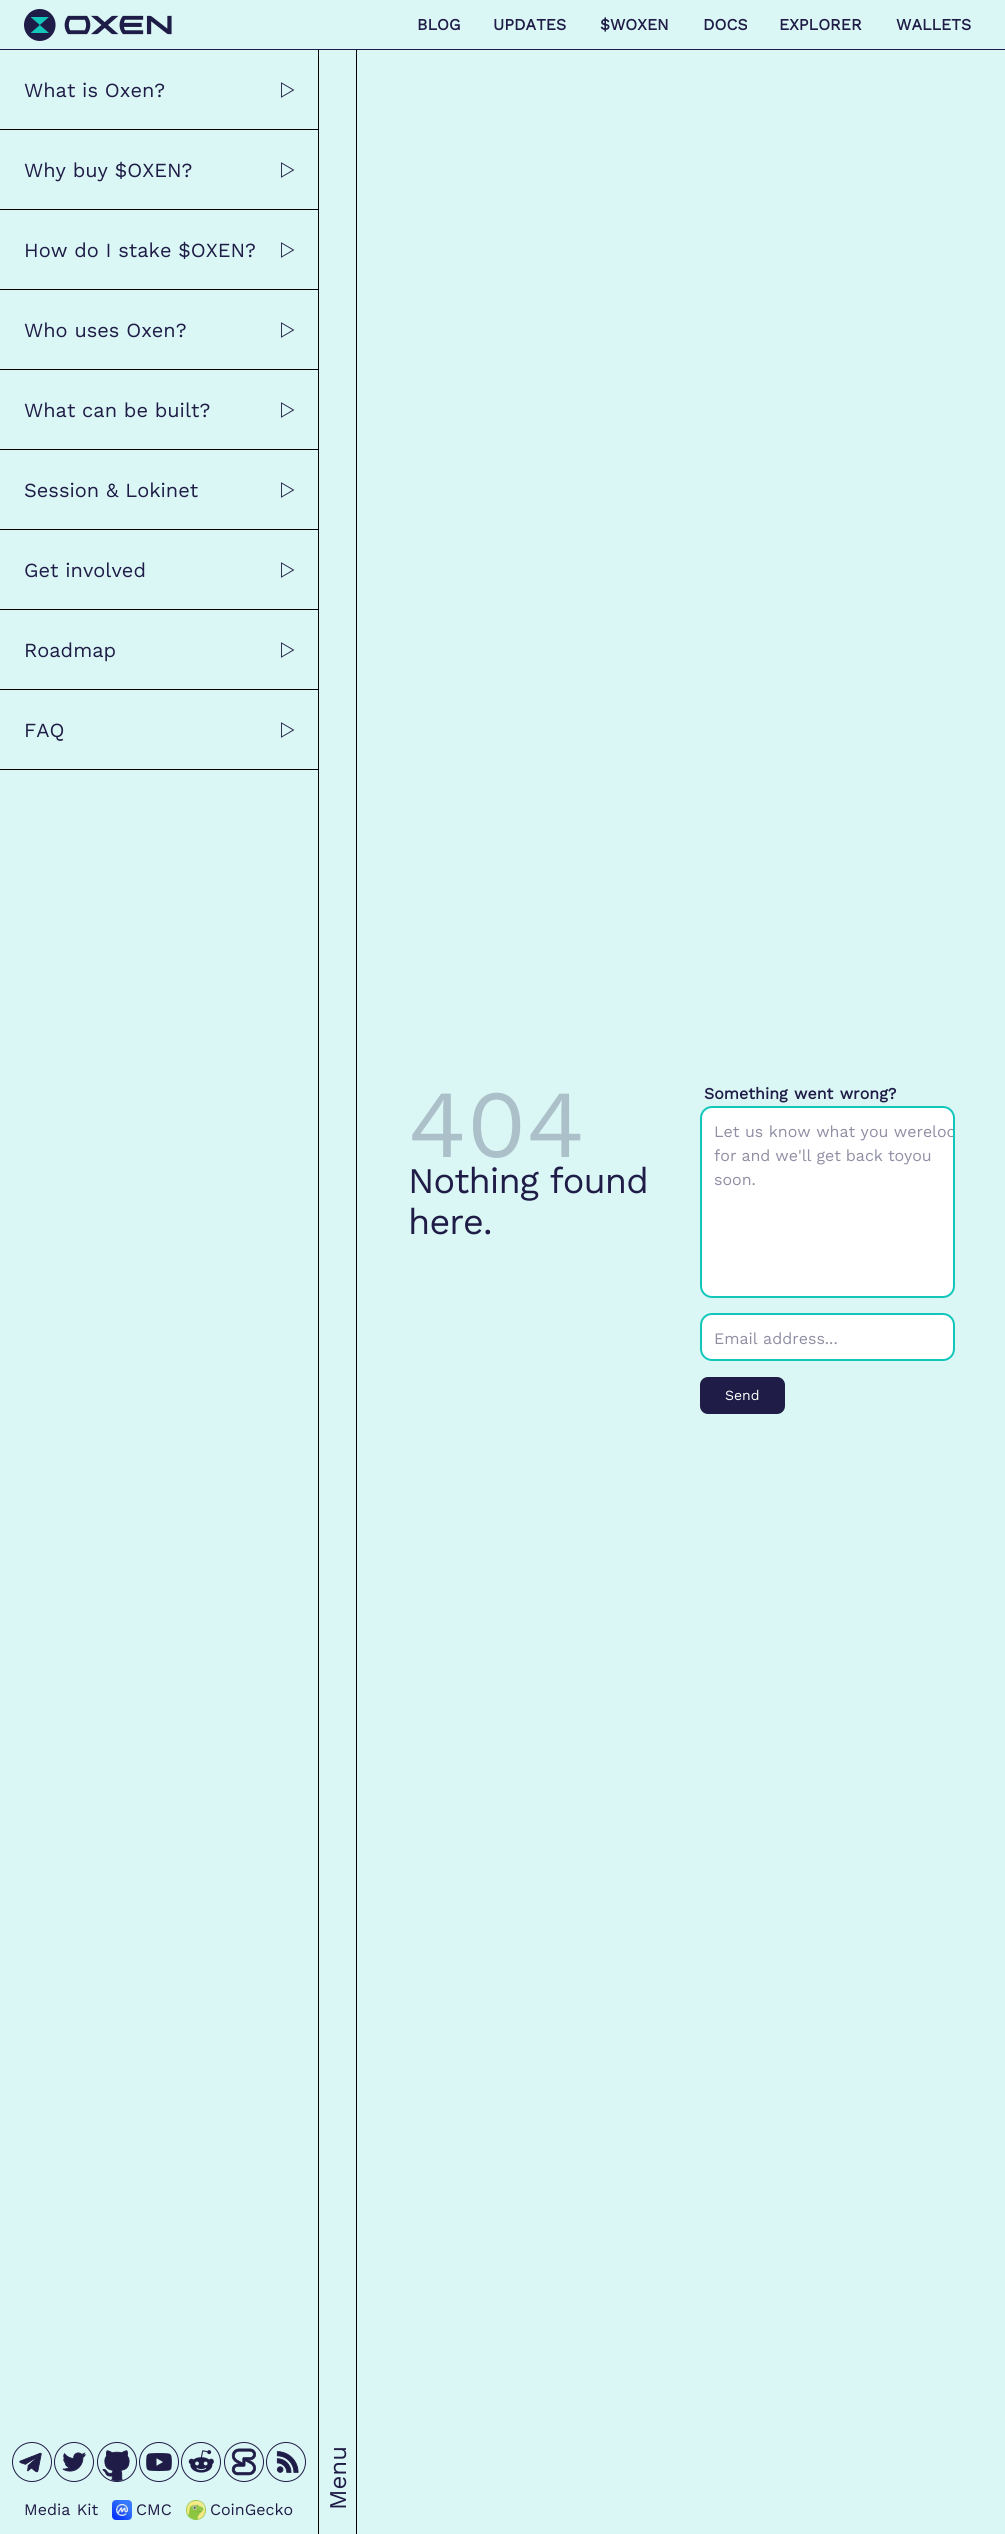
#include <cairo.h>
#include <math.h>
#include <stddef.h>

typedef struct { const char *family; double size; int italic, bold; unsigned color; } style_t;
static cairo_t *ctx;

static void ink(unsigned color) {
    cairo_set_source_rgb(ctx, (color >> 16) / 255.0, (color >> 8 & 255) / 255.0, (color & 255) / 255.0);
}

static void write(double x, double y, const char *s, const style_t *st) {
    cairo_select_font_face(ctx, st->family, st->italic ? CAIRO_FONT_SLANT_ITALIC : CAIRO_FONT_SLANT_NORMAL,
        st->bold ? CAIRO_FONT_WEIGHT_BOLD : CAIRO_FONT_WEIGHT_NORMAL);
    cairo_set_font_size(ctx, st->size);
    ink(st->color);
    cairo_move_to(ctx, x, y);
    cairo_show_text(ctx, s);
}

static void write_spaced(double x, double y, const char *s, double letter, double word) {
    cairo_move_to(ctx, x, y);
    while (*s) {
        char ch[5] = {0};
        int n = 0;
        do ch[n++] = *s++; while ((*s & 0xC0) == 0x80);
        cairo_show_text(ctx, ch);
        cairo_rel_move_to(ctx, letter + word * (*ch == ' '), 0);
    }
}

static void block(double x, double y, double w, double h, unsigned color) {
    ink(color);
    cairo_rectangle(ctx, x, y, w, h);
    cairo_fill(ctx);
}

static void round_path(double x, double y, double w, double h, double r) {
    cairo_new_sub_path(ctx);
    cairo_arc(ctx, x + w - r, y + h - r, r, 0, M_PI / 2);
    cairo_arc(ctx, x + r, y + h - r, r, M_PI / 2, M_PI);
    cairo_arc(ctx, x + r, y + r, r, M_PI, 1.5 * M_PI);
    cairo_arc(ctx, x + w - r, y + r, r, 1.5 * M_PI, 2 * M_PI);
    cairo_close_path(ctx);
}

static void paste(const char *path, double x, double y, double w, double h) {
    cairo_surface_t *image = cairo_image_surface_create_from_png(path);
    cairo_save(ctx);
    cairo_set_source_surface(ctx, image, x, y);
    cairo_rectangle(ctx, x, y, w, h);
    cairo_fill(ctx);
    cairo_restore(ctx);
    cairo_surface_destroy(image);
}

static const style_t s1 = {"Work Sans", 16, 0, 1, 0x1f1c47};
static const style_t s2 = {"Work Sans", 20, 0, 0, 0x1f1c47};
static const style_t s3 = {"Work Sans", 16, 0, 0, 0x1f1c47};
static const style_t s4 = {"Work Sans", 24, 0, 0, 0x1f1c47};
static const style_t s5 = {"Work Sans", 96, 0, 0, 0xacc0ca};
static const style_t s6 = {"Work Sans", 16, 0, 0, 0x8f8ea3};
static const style_t s7 = {"Work Sans", 14, 0, 0, 0xffffff};

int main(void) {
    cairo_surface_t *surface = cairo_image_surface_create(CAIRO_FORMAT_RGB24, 1005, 2534);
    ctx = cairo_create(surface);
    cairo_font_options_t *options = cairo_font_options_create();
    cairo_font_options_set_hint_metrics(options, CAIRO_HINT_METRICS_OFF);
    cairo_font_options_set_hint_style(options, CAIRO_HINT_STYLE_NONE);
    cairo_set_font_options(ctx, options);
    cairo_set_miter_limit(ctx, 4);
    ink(0xdbf7f5);
    cairo_paint(ctx);
    block(0, 49, 1005, 1, 0x1f1c47);
    paste("pic1.png", 24, 9, 148, 32);
    write(417, 30, "BLOG", &s1);
    write(493, 30, "UPDATES", &s1);
    write(600, 30, "$WOXEN", &s1);
    write(703, 30, "DOCS", &s1);
    write(779, 30, "EXPLORER", &s1);
    write(896, 30, "WALLETS", &s1);
    block(0, 129, 318, 1, 0x000000);
    write(24, 97, "What is Oxen?", &s2);
    cairo_new_path(ctx);
    cairo_move_to(ctx, 281.5, 83);
    cairo_line_to(ctx, 293.5, 90);
    cairo_line_to(ctx, 281.5, 97);
    cairo_close_path(ctx);
    cairo_set_line_width(ctx, 0.9);
    cairo_stroke(ctx);
    block(0, 209, 318, 1, 0x000000);
    write(24, 177, "Why buy $OXEN?", &s2);
    cairo_new_path(ctx);
    cairo_move_to(ctx, 281.5, 163);
    cairo_line_to(ctx, 293.5, 170);
    cairo_line_to(ctx, 281.5, 177);
    cairo_close_path(ctx);
    cairo_stroke(ctx);
    block(0, 289, 318, 1, 0x000000);
    write(24, 257, "How do I stake $OXEN?", &s2);
    cairo_new_path(ctx);
    cairo_move_to(ctx, 281.5, 243);
    cairo_line_to(ctx, 293.5, 250);
    cairo_line_to(ctx, 281.5, 257);
    cairo_close_path(ctx);
    cairo_stroke(ctx);
    block(0, 369, 318, 1, 0x000000);
    write(24, 337, "Who uses Oxen?", &s2);
    cairo_new_path(ctx);
    cairo_move_to(ctx, 281.5, 323);
    cairo_line_to(ctx, 293.5, 330);
    cairo_line_to(ctx, 281.5, 337);
    cairo_close_path(ctx);
    cairo_stroke(ctx);
    block(0, 449, 318, 1, 0x000000);
    write(24, 417, "What can be built?", &s2);
    cairo_new_path(ctx);
    cairo_move_to(ctx, 281.5, 403);
    cairo_line_to(ctx, 293.5, 410);
    cairo_line_to(ctx, 281.5, 417);
    cairo_close_path(ctx);
    cairo_stroke(ctx);
    block(0, 529, 318, 1, 0x000000);
    write(24, 497, "Session & Lokinet", &s2);
    cairo_new_path(ctx);
    cairo_move_to(ctx, 281.5, 483);
    cairo_line_to(ctx, 293.5, 490);
    cairo_line_to(ctx, 281.5, 497);
    cairo_close_path(ctx);
    cairo_stroke(ctx);
    block(0, 609, 318, 1, 0x000000);
    write(24, 577, "Get involved", &s2);
    cairo_new_path(ctx);
    cairo_move_to(ctx, 281.5, 563);
    cairo_line_to(ctx, 293.5, 570);
    cairo_line_to(ctx, 281.5, 577);
    cairo_close_path(ctx);
    cairo_stroke(ctx);
    block(0, 689, 318, 1, 0x000000);
    write(24, 657, "Roadmap", &s2);
    cairo_new_path(ctx);
    cairo_move_to(ctx, 281.5, 643);
    cairo_line_to(ctx, 293.5, 650);
    cairo_line_to(ctx, 281.5, 657);
    cairo_close_path(ctx);
    cairo_stroke(ctx);
    block(0, 769, 318, 1, 0x000000);
    write(24, 737, "FAQ", &s2);
    cairo_new_path(ctx);
    cairo_move_to(ctx, 281.5, 723);
    cairo_line_to(ctx, 293.5, 730);
    cairo_line_to(ctx, 281.5, 737);
    cairo_close_path(ctx);
    cairo_stroke(ctx);
    cairo_arc(ctx, 32, 2462, 19.5, 0, 2 * M_PI);
    cairo_set_line_width(ctx, 1);
    cairo_stroke(ctx);
    paste("pic2.png", 19, 2452, 23, 21);
    cairo_arc(ctx, 74, 2462, 19.5, 0, 2 * M_PI);
    cairo_stroke(ctx);
    paste("pic3.png", 62, 2452, 25, 20);
    cairo_arc(ctx, 117, 2462, 19.5, 0, 2 * M_PI);
    cairo_stroke(ctx);
    paste("pic4.png", 102, 2450, 28, 31);
    cairo_arc(ctx, 159, 2462, 19.5, 0, 2 * M_PI);
    cairo_stroke(ctx);
    paste("pic5.png", 146, 2453, 26, 19);
    cairo_arc(ctx, 201, 2462, 19.5, 0, 2 * M_PI);
    cairo_stroke(ctx);
    paste("pic6.png", 188, 2450, 26, 23);
    cairo_arc(ctx, 244, 2462, 19.5, 0, 2 * M_PI);
    cairo_stroke(ctx);
    paste("pic7.png", 231, 2448, 26, 28);
    cairo_arc(ctx, 286, 2462, 19.5, 0, 2 * M_PI);
    cairo_stroke(ctx);
    paste("pic8.png", 276, 2451, 23, 22);
    cairo_set_font_size(ctx, 16);
    write_spaced(24, 2515, "Media Kit", 0, 1);
    paste("pic9.png", 112, 2500, 20, 20);
    write(136, 2515, "CMC", &s3);
    paste("pic10.png", 186, 2500, 20, 20);
    write(210, 2515, "CoinGecko", &s3);
    block(356, 50, 1, 2484, 0x000000);
    block(318, 50, 1, 2484, 0x000000);
    cairo_save(ctx);
    cairo_translate(ctx, 346, 2510);
    cairo_rotate(ctx, -90 * M_PI / 180);
    write(0, 0, "Menu", &s4);
    cairo_restore(ctx);
    write(408, 1157, "404", &s5);
    cairo_set_font_size(ctx, 36);
    ink(0x1f1c47);
    write_spaced(408, 1193, "Nothing found", -0.9, 0);
    write_spaced(408, 1234, "here.", -0.9, 0);
    cairo_select_font_face(ctx, "Work Sans", CAIRO_FONT_SLANT_NORMAL, CAIRO_FONT_WEIGHT_BOLD);
    cairo_set_font_size(ctx, 16);
    write_spaced(704, 1099, "Something went wrong?", 0, 1);
    ink(0xffffff);
    round_path(701, 1107, 253, 190, 11);
    cairo_fill_preserve(ctx);
    ink(0x12c7ba);
    cairo_set_line_width(ctx, 2);
    cairo_stroke(ctx);
    write(714, 1137, "Let us know what you were", &s6);
    cairo_save(ctx);
    round_path(702, 1108, 251, 188, 10);
    cairo_clip(ctx);
    write(932, 1137, "loo", &s6);
    cairo_restore(ctx);
    write_spaced(714, 1161, "for and we'll get back to", 0, -0.5);
    write(904, 1161, "you", &s6);
    write(714, 1185, "soon.", &s6);
    ink(0xffffff);
    round_path(701, 1314, 253, 46, 11);
    cairo_fill_preserve(ctx);
    ink(0x12c7ba);
    cairo_stroke(ctx);
    write(714, 1344, "Email address...", &s6);
    ink(0x1f1c47);
    round_path(700, 1377, 85, 37, 8);
    cairo_fill(ctx);
    write(725, 1400, "Send", &s7);
    cairo_surface_write_to_png(surface, "screenshot.png");
    cairo_font_options_destroy(options);
    cairo_destroy(ctx);
    cairo_surface_destroy(surface);
    return 0;
}
